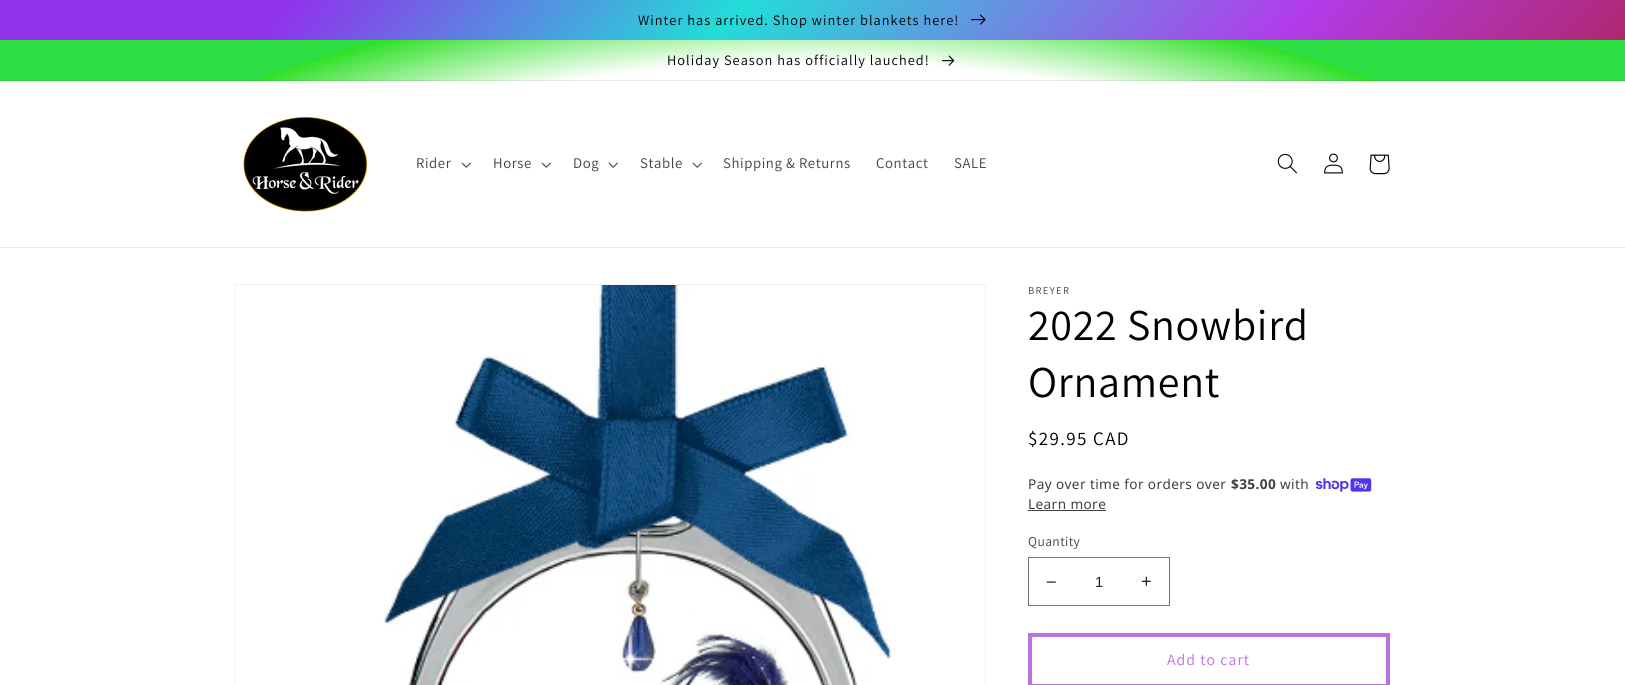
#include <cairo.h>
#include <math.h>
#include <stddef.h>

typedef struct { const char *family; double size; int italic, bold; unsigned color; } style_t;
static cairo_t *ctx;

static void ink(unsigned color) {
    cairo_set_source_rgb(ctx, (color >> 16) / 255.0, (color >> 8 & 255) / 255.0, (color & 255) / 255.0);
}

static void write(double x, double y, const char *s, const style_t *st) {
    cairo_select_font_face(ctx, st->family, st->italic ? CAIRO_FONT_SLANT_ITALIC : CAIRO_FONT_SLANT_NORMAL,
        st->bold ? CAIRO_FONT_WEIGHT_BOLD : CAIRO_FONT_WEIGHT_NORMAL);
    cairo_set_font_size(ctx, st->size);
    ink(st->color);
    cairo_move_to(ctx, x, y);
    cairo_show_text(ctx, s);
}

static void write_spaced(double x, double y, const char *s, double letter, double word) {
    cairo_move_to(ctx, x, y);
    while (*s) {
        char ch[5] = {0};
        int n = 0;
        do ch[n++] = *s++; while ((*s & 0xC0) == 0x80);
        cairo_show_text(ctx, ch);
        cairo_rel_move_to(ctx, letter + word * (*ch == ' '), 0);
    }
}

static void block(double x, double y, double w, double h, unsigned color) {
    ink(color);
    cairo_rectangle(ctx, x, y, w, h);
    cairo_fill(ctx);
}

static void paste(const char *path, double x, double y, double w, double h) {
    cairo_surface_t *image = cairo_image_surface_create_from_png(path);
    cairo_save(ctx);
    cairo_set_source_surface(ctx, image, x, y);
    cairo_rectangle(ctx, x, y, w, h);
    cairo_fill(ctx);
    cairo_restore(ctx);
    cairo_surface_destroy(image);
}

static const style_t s1 = {"Liberation Sans", 14.75, 0, 0, 0x262626};

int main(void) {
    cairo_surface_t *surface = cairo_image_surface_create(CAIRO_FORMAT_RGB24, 1625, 685);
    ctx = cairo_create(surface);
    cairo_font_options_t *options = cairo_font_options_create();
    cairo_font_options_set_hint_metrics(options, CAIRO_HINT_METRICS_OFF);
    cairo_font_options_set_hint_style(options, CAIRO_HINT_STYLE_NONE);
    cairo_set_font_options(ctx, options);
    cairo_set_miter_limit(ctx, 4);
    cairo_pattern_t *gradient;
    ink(0xffffff);
    cairo_paint(ctx);
    gradient = cairo_pattern_create_linear(207, -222, 1418, 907);
    cairo_pattern_add_color_stop_rgba(gradient, 0.13, 0.565, 0.2, 0.922, 1);
    cairo_pattern_add_color_stop_rgba(gradient, 0.33, 0.137, 0.863, 0.847, 1);
    cairo_pattern_add_color_stop_rgba(gradient, 0.58, 0.698, 0.235, 0.922, 1);
    cairo_pattern_add_color_stop_rgba(gradient, 0.84, 0.686, 0.098, 0.098, 1);
    cairo_set_source(ctx, gradient);
    cairo_pattern_destroy(gradient);
    cairo_rectangle(ctx, 0, 0, 1625, 39);
    cairo_fill(ctx);
    gradient = cairo_pattern_create_linear(207, -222, 1418, 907);
    cairo_pattern_add_color_stop_rgba(gradient, 0.13, 0.553, 0.196, 0.902, 1);
    cairo_pattern_add_color_stop_rgba(gradient, 0.33, 0.133, 0.843, 0.831, 1);
    cairo_pattern_add_color_stop_rgba(gradient, 0.58, 0.682, 0.231, 0.902, 1);
    cairo_pattern_add_color_stop_rgba(gradient, 0.84, 0.671, 0.098, 0.098, 1);
    cairo_set_source(ctx, gradient);
    cairo_pattern_destroy(gradient);
    cairo_rectangle(ctx, 0, 39, 1625, 1);
    cairo_fill(ctx);
    cairo_select_font_face(ctx, "Assistant", CAIRO_FONT_SLANT_NORMAL, CAIRO_FONT_WEIGHT_NORMAL);
    cairo_set_font_size(ctx, 14.3);
    ink(0x000000);
    write_spaced(638, 25, "Winter has arrived. Shop winter blankets here!", 1.05, 0);
    paste("pic1.png", 971, 14, 15, 11);
    gradient = cairo_pattern_create_radial(0, 0, 0, 0, 0, 1);
    cairo_pattern_set_matrix(gradient, &(cairo_matrix_t){1.0 / 1149, 0, 0, 1.0 / 484, -1.0 * 813 / 1149, -1.0 * 343 / 484});
    cairo_pattern_add_color_stop_rgba(gradient, 0.58, 1, 1, 1, 1);
    cairo_pattern_add_color_stop_rgba(gradient, 0.73, 0.176, 0.875, 0.145, 1);
    cairo_pattern_add_color_stop_rgba(gradient, 0.73, 0.18, 0.875, 0.267, 1);
    cairo_set_source(ctx, gradient);
    cairo_pattern_destroy(gradient);
    cairo_rectangle(ctx, 0, 40, 1625, 40);
    cairo_fill(ctx);
    gradient = cairo_pattern_create_radial(0, 0, 0, 0, 0, 1);
    cairo_pattern_set_matrix(gradient, &(cairo_matrix_t){1.0 / 1149, 0, 0, 1.0 / 484, -1.0 * 813 / 1149, -1.0 * 343 / 484});
    cairo_pattern_add_color_stop_rgba(gradient, 0.58, 0.922, 0.922, 0.922, 1);
    cairo_pattern_add_color_stop_rgba(gradient, 0.73, 0.161, 0.804, 0.133, 1);
    cairo_pattern_add_color_stop_rgba(gradient, 0.73, 0.165, 0.804, 0.247, 1);
    cairo_set_source(ctx, gradient);
    cairo_pattern_destroy(gradient);
    cairo_rectangle(ctx, 0, 80, 1625, 1);
    cairo_fill(ctx);
    ink(0x000000);
    write_spaced(667, 65, "Holiday Season has officially lauched!", 1.05, 0);
    paste("pic2.png", 942, 55, 13, 11);
    block(0, 247, 1625, 1, 0xebebeb);
    paste("pic3.png", 243, 116, 125, 96);
    cairo_set_font_size(ctx, 14.75);
    ink(0x404040);
    write_spaced(416, 168, "Rider", 0.6, 0);
    paste("pic4.png", 461, 162, 10, 6);
    write_spaced(493, 168, "Horse", 0.6, 0);
    paste("pic4.png", 541, 162, 10, 6);
    write_spaced(573, 168, "Dog", 0.6, 0);
    paste("pic4.png", 608, 162, 10, 6);
    write_spaced(640, 168, "Stable", 0.6, 0);
    paste("pic4.png", 692, 162, 10, 6);
    write_spaced(723, 168, "Shipping & Returns", 0.6, 0);
    write_spaced(876, 168, "Contact", 0.6, 0);
    write_spaced(954, 168, "SALE", 0.6, 0);
    paste("pic5.png", 1277, 153, 20, 21);
    paste("pic6.png", 1324, 153, 19, 21);
    paste("pic7.png", 1369, 154, 21, 21);
    cairo_rectangle(ctx, 235.5, 284.5, 750, 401);
    ink(0xf2f2f2);
    cairo_set_line_width(ctx, 1);
    cairo_stroke(ctx);
    paste("pic8.png", 383, 285, 513, 400);
    cairo_set_font_size(ctx, 10.5);
    ink(0x404040);
    write_spaced(1028, 294, "BREYER", 1.4, 0);
    cairo_set_font_size(ctx, 44);
    ink(0x000000);
    write_spaced(1028, 340, "2022 Snowbird", 0.7, 0);
    write_spaced(1028, 397, "Ornament", 0.7, 0);
    cairo_set_font_size(ctx, 19);
    write_spaced(1028, 445, "$29.95 CAD", 1.4, 0);
    cairo_select_font_face(ctx, "Noto Sans", CAIRO_FONT_SLANT_NORMAL, CAIRO_FONT_WEIGHT_NORMAL);
    cairo_set_font_size(ctx, 13.6);
    ink(0x404040);
    write_spaced(1028, 489, "Pay over time for orders over", 0.4, 0);
    cairo_select_font_face(ctx, "Noto Sans", CAIRO_FONT_SLANT_NORMAL, CAIRO_FONT_WEIGHT_BOLD);
    write_spaced(1231, 489, "$35.00", 0.4, 0);
    cairo_select_font_face(ctx, "Noto Sans", CAIRO_FONT_SLANT_NORMAL, CAIRO_FONT_WEIGHT_NORMAL);
    write_spaced(1280, 489, "with", 0.4, 0);
    paste("pic9.png", 1315, 478, 57, 14);
    write_spaced(1028, 509, "Learn more", 0.4, 0);
    block(1028, 510, 78, 1, 0x404040);
    cairo_select_font_face(ctx, "Assistant", CAIRO_FONT_SLANT_NORMAL, CAIRO_FONT_WEIGHT_NORMAL);
    write_spaced(1028, 546, "Quantity", 0.4, 0);
    paste("pic10.png", 1046, 581, 10, 2);
    paste("pic11.png", 1141, 576, 10, 10);
    cairo_rectangle(ctx, 1028.5, 557.5, 141, 48);
    ink(0x737373);
    cairo_stroke(ctx);
    write(1095, 587, "1", &s1);
    cairo_rectangle(ctx, 1030, 635, 358, 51);
    ink(0xbb72e1);
    cairo_set_line_width(ctx, 4);
    cairo_stroke(ctx);
    cairo_select_font_face(ctx, "Assistant", CAIRO_FONT_SLANT_NORMAL, CAIRO_FONT_WEIGHT_NORMAL);
    cairo_set_font_size(ctx, 15.75);
    write_spaced(1167, 665, "Add to cart", 1.05, 0);
    cairo_surface_write_to_png(surface, "screenshot.png");
    cairo_font_options_destroy(options);
    cairo_destroy(ctx);
    cairo_surface_destroy(surface);
    return 0;
}
